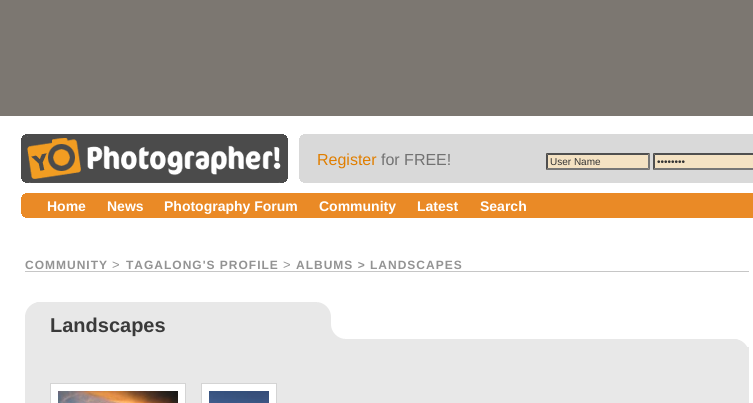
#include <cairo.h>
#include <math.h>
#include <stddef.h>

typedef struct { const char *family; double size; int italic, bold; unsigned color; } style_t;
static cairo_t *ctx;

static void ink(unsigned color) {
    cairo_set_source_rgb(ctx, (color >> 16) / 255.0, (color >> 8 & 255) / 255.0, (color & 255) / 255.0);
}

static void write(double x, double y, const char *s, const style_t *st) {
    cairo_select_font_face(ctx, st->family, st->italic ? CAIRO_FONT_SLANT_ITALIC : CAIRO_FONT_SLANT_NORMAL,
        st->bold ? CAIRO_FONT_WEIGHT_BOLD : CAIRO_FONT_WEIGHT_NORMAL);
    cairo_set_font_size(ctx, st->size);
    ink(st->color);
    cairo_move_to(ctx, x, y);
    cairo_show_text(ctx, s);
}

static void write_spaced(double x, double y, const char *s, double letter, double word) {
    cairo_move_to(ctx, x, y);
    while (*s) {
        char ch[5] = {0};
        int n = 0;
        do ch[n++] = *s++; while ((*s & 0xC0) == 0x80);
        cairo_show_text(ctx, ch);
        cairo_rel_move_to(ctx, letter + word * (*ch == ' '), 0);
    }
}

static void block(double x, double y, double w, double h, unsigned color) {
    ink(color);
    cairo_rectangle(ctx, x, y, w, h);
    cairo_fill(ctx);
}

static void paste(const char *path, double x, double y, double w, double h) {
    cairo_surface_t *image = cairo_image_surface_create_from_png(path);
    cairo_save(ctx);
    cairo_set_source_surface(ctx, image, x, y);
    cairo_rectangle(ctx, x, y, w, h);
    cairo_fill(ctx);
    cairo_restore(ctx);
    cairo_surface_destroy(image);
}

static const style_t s1 = {"Liberation Sans", 16, 0, 0, 0xe07e00};
static const style_t s2 = {"Liberation Sans", 16, 0, 0, 0x727272};
static const style_t s3 = {"Liberation Sans", 10, 0, 0, 0x333333};
static const style_t s4 = {"Liberation Sans", 14, 0, 1, 0xffffff};
static const style_t s5 = {"Liberation Sans", 20, 0, 1, 0x3a3a3a};

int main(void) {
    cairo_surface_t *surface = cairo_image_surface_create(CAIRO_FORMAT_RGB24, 753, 403);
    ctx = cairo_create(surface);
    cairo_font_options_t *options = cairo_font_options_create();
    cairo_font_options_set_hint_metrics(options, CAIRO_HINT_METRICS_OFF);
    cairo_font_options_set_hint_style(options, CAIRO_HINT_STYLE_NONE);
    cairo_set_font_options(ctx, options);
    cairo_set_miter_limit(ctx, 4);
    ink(0xffffff);
    cairo_paint(ctx);
    block(0, 0, 753, 116, 0x7c7771);
    paste("pic1.png", 21, 134, 267, 49);
    block(299, 134, 454, 49, 0xd9d9d9);
    paste("pic2.png", 299, 179, 4, 4);
    paste("pic3.png", 299, 134, 4, 4);
    write(317, 165, "Register", &s1);
    write(381, 165, "for FREE!", &s2);
    block(546, 153, 104, 17, 0xf4e2c3);
    ink(0x4f4f4f);
    cairo_new_path(ctx);
    cairo_move_to(ctx, 546, 153);
    cairo_line_to(ctx, 650, 153);
    cairo_line_to(ctx, 648, 155);
    cairo_line_to(ctx, 548, 155);
    cairo_close_path(ctx);
    cairo_fill(ctx);
    ink(0x767676);
    cairo_new_path(ctx);
    cairo_move_to(ctx, 650, 153);
    cairo_line_to(ctx, 650, 170);
    cairo_line_to(ctx, 648, 168);
    cairo_line_to(ctx, 648, 155);
    cairo_close_path(ctx);
    cairo_fill(ctx);
    cairo_new_path(ctx);
    cairo_move_to(ctx, 650, 170);
    cairo_line_to(ctx, 546, 170);
    cairo_line_to(ctx, 548, 168);
    cairo_line_to(ctx, 648, 168);
    cairo_close_path(ctx);
    cairo_fill(ctx);
    ink(0x4f4f4f);
    cairo_new_path(ctx);
    cairo_move_to(ctx, 546, 170);
    cairo_line_to(ctx, 546, 153);
    cairo_line_to(ctx, 548, 155);
    cairo_line_to(ctx, 548, 168);
    cairo_close_path(ctx);
    cairo_fill(ctx);
    write(550, 165, "User Name", &s3);
    block(653, 153, 100, 17, 0xf4e2c3);
    ink(0x4f4f4f);
    cairo_new_path(ctx);
    cairo_move_to(ctx, 653, 153);
    cairo_line_to(ctx, 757, 153);
    cairo_line_to(ctx, 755, 155);
    cairo_line_to(ctx, 655, 155);
    cairo_close_path(ctx);
    cairo_fill(ctx);
    ink(0x767676);
    cairo_new_path(ctx);
    cairo_move_to(ctx, 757, 170);
    cairo_line_to(ctx, 653, 170);
    cairo_line_to(ctx, 655, 168);
    cairo_line_to(ctx, 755, 168);
    cairo_close_path(ctx);
    cairo_fill(ctx);
    ink(0x4f4f4f);
    cairo_new_path(ctx);
    cairo_move_to(ctx, 653, 170);
    cairo_line_to(ctx, 653, 153);
    cairo_line_to(ctx, 655, 155);
    cairo_line_to(ctx, 655, 168);
    cairo_close_path(ctx);
    cairo_fill(ctx);
    write(657, 165, "••••••••", &s3);
    block(21, 193, 732, 25, 0xea8a26);
    paste("pic4.png", 21, 214, 4, 4);
    paste("pic5.png", 21, 193, 4, 4);
    write(47, 211, "Home", &s4);
    write(107, 211, "News", &s4);
    write(164, 211, "Photography Forum", &s4);
    write(319, 211, "Community", &s4);
    write(417, 211, "Latest", &s4);
    write(480, 211, "Search", &s4);
    block(25, 271, 724, 1, 0xc6c6c6);
    cairo_set_font_size(ctx, 12);
    ink(0x939393);
    write_spaced(25, 269, "COMMUNITY", 1, 0);
    cairo_select_font_face(ctx, "Liberation Sans", CAIRO_FONT_SLANT_NORMAL, CAIRO_FONT_WEIGHT_NORMAL);
    cairo_set_font_size(ctx, 13);
    write_spaced(112, 269, ">", 1, 0);
    cairo_select_font_face(ctx, "Liberation Sans", CAIRO_FONT_SLANT_NORMAL, CAIRO_FONT_WEIGHT_BOLD);
    cairo_set_font_size(ctx, 12);
    write_spaced(126, 269, "TAGALONG'S PROFILE", 1, 0);
    cairo_select_font_face(ctx, "Liberation Sans", CAIRO_FONT_SLANT_NORMAL, CAIRO_FONT_WEIGHT_NORMAL);
    cairo_set_font_size(ctx, 13);
    write_spaced(283, 269, ">", 1, 0);
    cairo_select_font_face(ctx, "Liberation Sans", CAIRO_FONT_SLANT_NORMAL, CAIRO_FONT_WEIGHT_BOLD);
    cairo_set_font_size(ctx, 12);
    write_spaced(296, 269, "ALBUMS > LANDSCAPES", 1, 0);
    block(25, 302, 320, 45, 0xe8e8e8);
    paste("pic6.png", 25, 302, 12, 13);
    write(50, 332, "Landscapes", &s5);
    paste("pic7.png", 317, 302, 28, 37);
    paste("pic8.png", 734, 302, 15, 45);
    block(345, 339, 389, 8, 0xe8e8e8);
    block(25, 347, 724, 56, 0xe8e8e8);
    ink(0xffffff);
    cairo_rectangle(ctx, 50.5, 383.5, 135, 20);
    cairo_fill_preserve(ctx);
    ink(0xd4d4d4);
    cairo_set_line_width(ctx, 1);
    cairo_stroke(ctx);
    paste("pic9.png", 58, 391, 120, 12);
    ink(0xffffff);
    cairo_rectangle(ctx, 201.5, 383.5, 75, 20);
    cairo_fill_preserve(ctx);
    ink(0xd4d4d4);
    cairo_stroke(ctx);
    paste("pic10.png", 209, 391, 60, 12);
    cairo_surface_write_to_png(surface, "screenshot.png");
    cairo_font_options_destroy(options);
    cairo_destroy(ctx);
    cairo_surface_destroy(surface);
    return 0;
}
